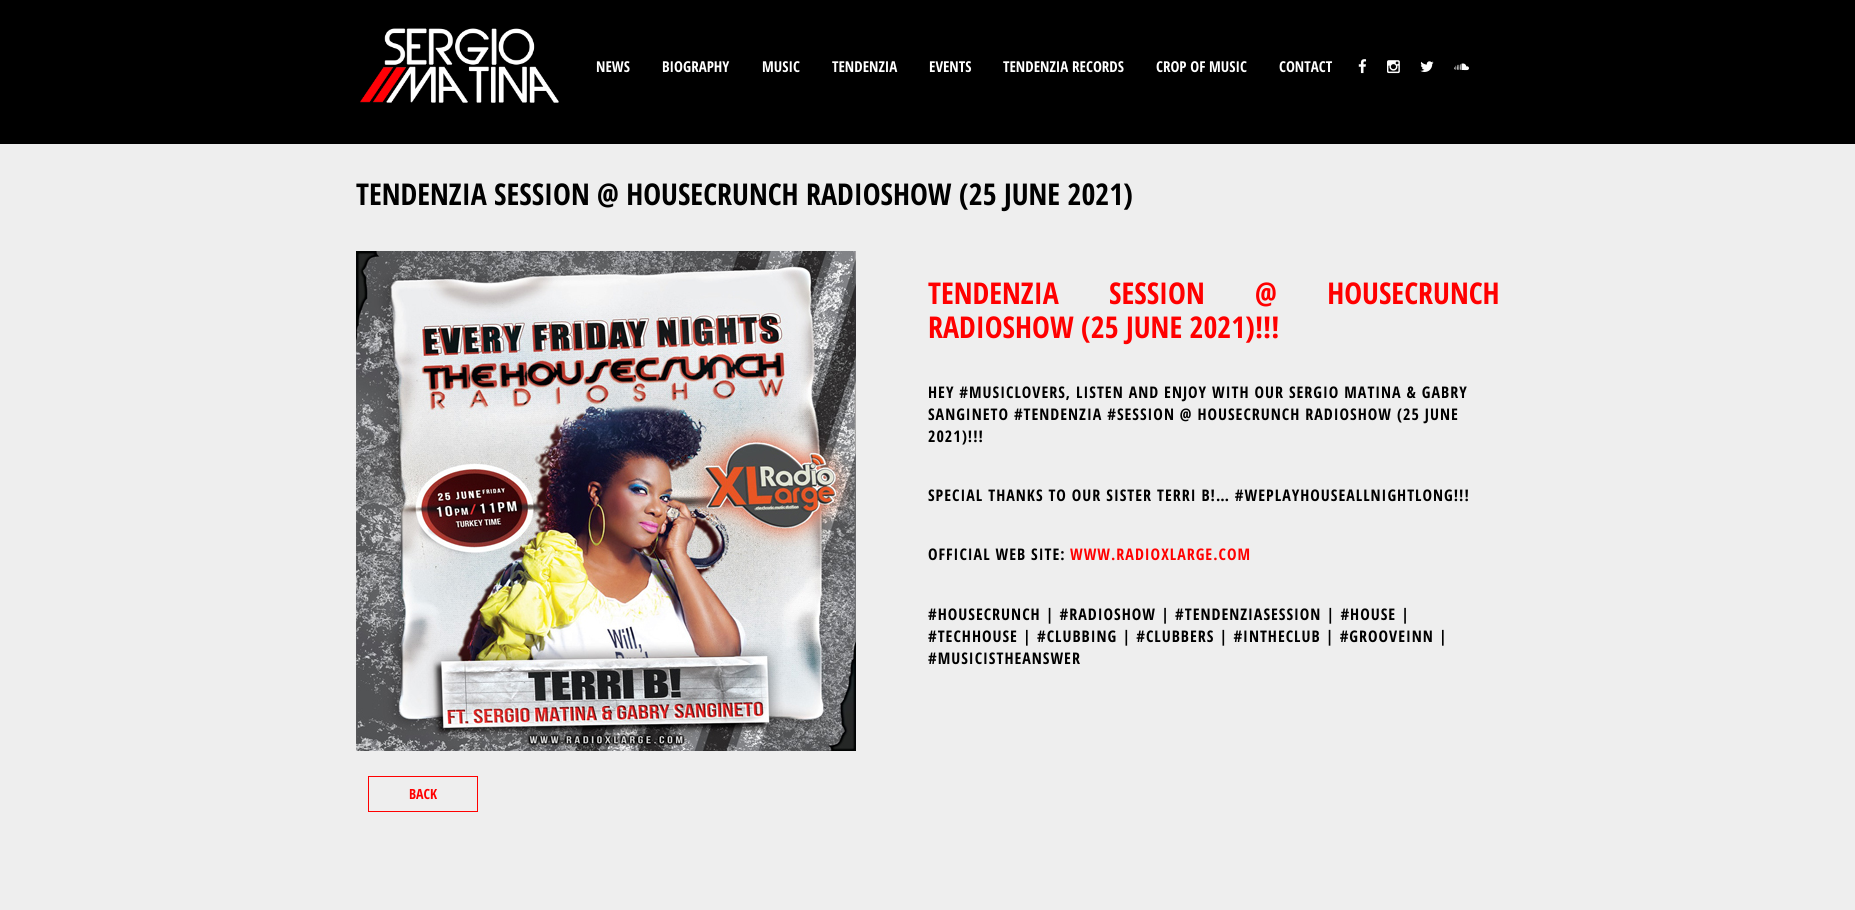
#include <cairo.h>
#include <math.h>
#include <stddef.h>

typedef struct { const char *family; double size; int italic, bold; unsigned color; } style_t;
static cairo_t *ctx;

static void ink(unsigned color) {
    cairo_set_source_rgb(ctx, (color >> 16) / 255.0, (color >> 8 & 255) / 255.0, (color & 255) / 255.0);
}

static void write(double x, double y, const char *s, const style_t *st) {
    cairo_select_font_face(ctx, st->family, st->italic ? CAIRO_FONT_SLANT_ITALIC : CAIRO_FONT_SLANT_NORMAL,
        st->bold ? CAIRO_FONT_WEIGHT_BOLD : CAIRO_FONT_WEIGHT_NORMAL);
    cairo_set_font_size(ctx, st->size);
    ink(st->color);
    cairo_move_to(ctx, x, y);
    cairo_show_text(ctx, s);
}

static void write_spaced(double x, double y, const char *s, double letter, double word) {
    cairo_move_to(ctx, x, y);
    while (*s) {
        char ch[5] = {0};
        int n = 0;
        do ch[n++] = *s++; while ((*s & 0xC0) == 0x80);
        cairo_show_text(ctx, ch);
        cairo_rel_move_to(ctx, letter + word * (*ch == ' '), 0);
    }
}

static void block(double x, double y, double w, double h, unsigned color) {
    ink(color);
    cairo_rectangle(ctx, x, y, w, h);
    cairo_fill(ctx);
}

static void paste(const char *path, double x, double y, double w, double h) {
    cairo_surface_t *image = cairo_image_surface_create_from_png(path);
    cairo_save(ctx);
    cairo_set_source_surface(ctx, image, x, y);
    cairo_rectangle(ctx, x, y, w, h);
    cairo_fill(ctx);
    cairo_restore(ctx);
    cairo_surface_destroy(image);
}

static const style_t s1 = {"Open Sans Condensed", 15, 0, 1, 0xffffff};
static const style_t s2 = {"Open Sans Condensed", 30, 0, 1, 0x000000};
static const style_t s3 = {"Open Sans Condensed", 30, 0, 1, 0xff0000};
static const style_t s4 = {"Open Sans Condensed", 14, 0, 1, 0xff0000};

int main(void) {
    cairo_surface_t *surface = cairo_image_surface_create(CAIRO_FORMAT_RGB24, 1855, 910);
    ctx = cairo_create(surface);
    cairo_font_options_t *options = cairo_font_options_create();
    cairo_font_options_set_hint_metrics(options, CAIRO_HINT_METRICS_OFF);
    cairo_font_options_set_hint_style(options, CAIRO_HINT_STYLE_NONE);
    cairo_set_font_options(ctx, options);
    cairo_set_miter_limit(ctx, 4);
    ink(0xeeeeee);
    cairo_paint(ctx);
    block(0, 0, 1855, 144, 0x000000);
    paste("pic1.png", 360, 28, 199, 75);
    write(596, 72, "NEWS", &s1);
    write(662, 72, "BIOGRAPHY", &s1);
    write(762, 72, "MUSIC", &s1);
    write(832, 72, "TENDENZIA", &s1);
    write(929, 72, "EVENTS", &s1);
    write(1003, 72, "TENDENZIA RECORDS", &s1);
    write(1156, 72, "CROP OF MUSIC", &s1);
    write(1279, 72, "CONTACT", &s1);
    paste("pic2.png", 1358, 59, 9, 15);
    paste("pic3.png", 1387, 60, 13, 14);
    paste("pic4.png", 1420, 61, 14, 11);
    paste("pic5.png", 1454, 63, 15, 8);
    write(356, 205, "TENDENZIA SESSION @ HOUSECRUNCH RADIOSHOW (25 JUNE 2021)", &s2);
    paste("pic6.png", 356, 251, 500, 500);
    ink(0xff0000);
    write_spaced(928, 304, "TENDENZIA SESSION @ HOUSECRUNCH", 0, 43);
    write(928, 338, "RADIOSHOW (25 JUNE 2021)!!!", &s3);
    cairo_set_font_size(ctx, 16);
    ink(0x000000);
    write_spaced(928, 398, "HEY #MUSICLOVERS, LISTEN AND ENJOY WITH OUR SERGIO MATINA & GABRY", 1, 0);
    write_spaced(928, 420, "SANGINETO #TENDENZIA #SESSION @ HOUSECRUNCH RADIOSHOW (25 JUNE", 1, 0);
    write_spaced(928, 442, "2021)!!!", 1, 0);
    write_spaced(928, 501, "SPECIAL THANKS TO OUR SISTER TERRI B!… #WEPLAYHOUSEALLNIGHTLONG!!!", 1, 0);
    write_spaced(928, 560, "OFFICIAL WEB SITE:", 1, 0);
    ink(0xff0000);
    write_spaced(1070, 560, "WWW.RADIOXLARGE.COM", 1, 0);
    ink(0x000000);
    write_spaced(928, 620, "#HOUSECRUNCH | #RADIOSHOW | #TENDENZIASESSION | #HOUSE |", 1, 0);
    write_spaced(928, 642, "#TECHHOUSE | #CLUBBING | #CLUBBERS | #INTHECLUB | #GROOVEINN |", 1, 0);
    write_spaced(928, 664, "#MUSICISTHEANSWER", 1, 0);
    cairo_rectangle(ctx, 368.5, 776.5, 109, 35);
    ink(0xff0000);
    cairo_set_line_width(ctx, 1);
    cairo_stroke(ctx);
    write(409, 799, "BACK", &s4);
    cairo_surface_write_to_png(surface, "screenshot.png");
    cairo_font_options_destroy(options);
    cairo_destroy(ctx);
    cairo_surface_destroy(surface);
    return 0;
}
